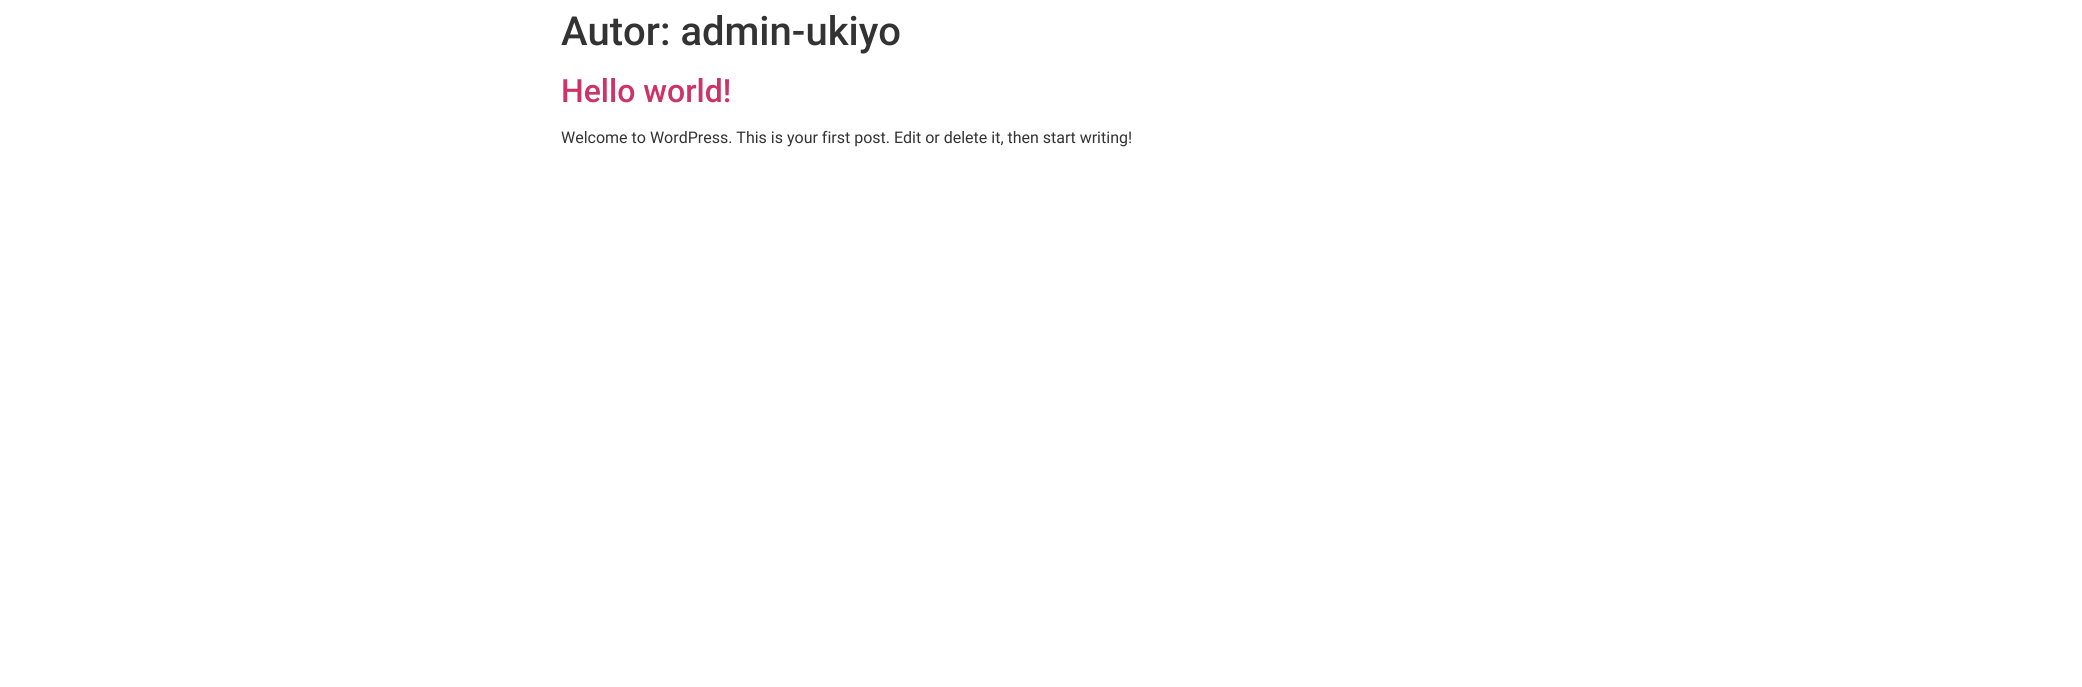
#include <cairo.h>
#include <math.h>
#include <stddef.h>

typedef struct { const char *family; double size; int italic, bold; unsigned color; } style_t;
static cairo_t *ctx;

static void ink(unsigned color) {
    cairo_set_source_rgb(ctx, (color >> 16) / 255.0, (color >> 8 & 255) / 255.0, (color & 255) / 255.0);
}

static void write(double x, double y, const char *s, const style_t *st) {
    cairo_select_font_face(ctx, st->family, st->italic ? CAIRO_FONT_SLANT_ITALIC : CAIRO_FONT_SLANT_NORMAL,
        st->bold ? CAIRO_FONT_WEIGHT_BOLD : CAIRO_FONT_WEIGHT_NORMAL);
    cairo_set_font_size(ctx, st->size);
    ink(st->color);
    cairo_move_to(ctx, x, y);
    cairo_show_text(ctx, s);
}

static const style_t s1 = {"Roboto Medium", 40, 0, 0, 0x333333};
static const style_t s2 = {"Roboto Medium", 32, 0, 0, 0xcc3366};
static const style_t s3 = {"Roboto", 16, 0, 0, 0x333333};

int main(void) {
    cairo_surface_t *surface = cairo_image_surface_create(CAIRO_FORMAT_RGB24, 2082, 687);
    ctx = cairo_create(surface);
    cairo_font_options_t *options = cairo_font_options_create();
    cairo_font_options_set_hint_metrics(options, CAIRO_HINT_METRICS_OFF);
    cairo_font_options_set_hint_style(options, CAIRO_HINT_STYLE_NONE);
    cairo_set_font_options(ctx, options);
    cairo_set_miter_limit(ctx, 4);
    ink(0xffffff);
    cairo_paint(ctx);
    write(561, 45, "Autor: admin-ukiyo", &s1);
    write(561, 102, "Hello world!", &s2);
    write(561, 143, "Welcome to WordPress. This is your first post. Edit or delete it, then start writing!", &s3);
    cairo_surface_write_to_png(surface, "screenshot.png");
    cairo_font_options_destroy(options);
    cairo_destroy(ctx);
    cairo_surface_destroy(surface);
    return 0;
}
